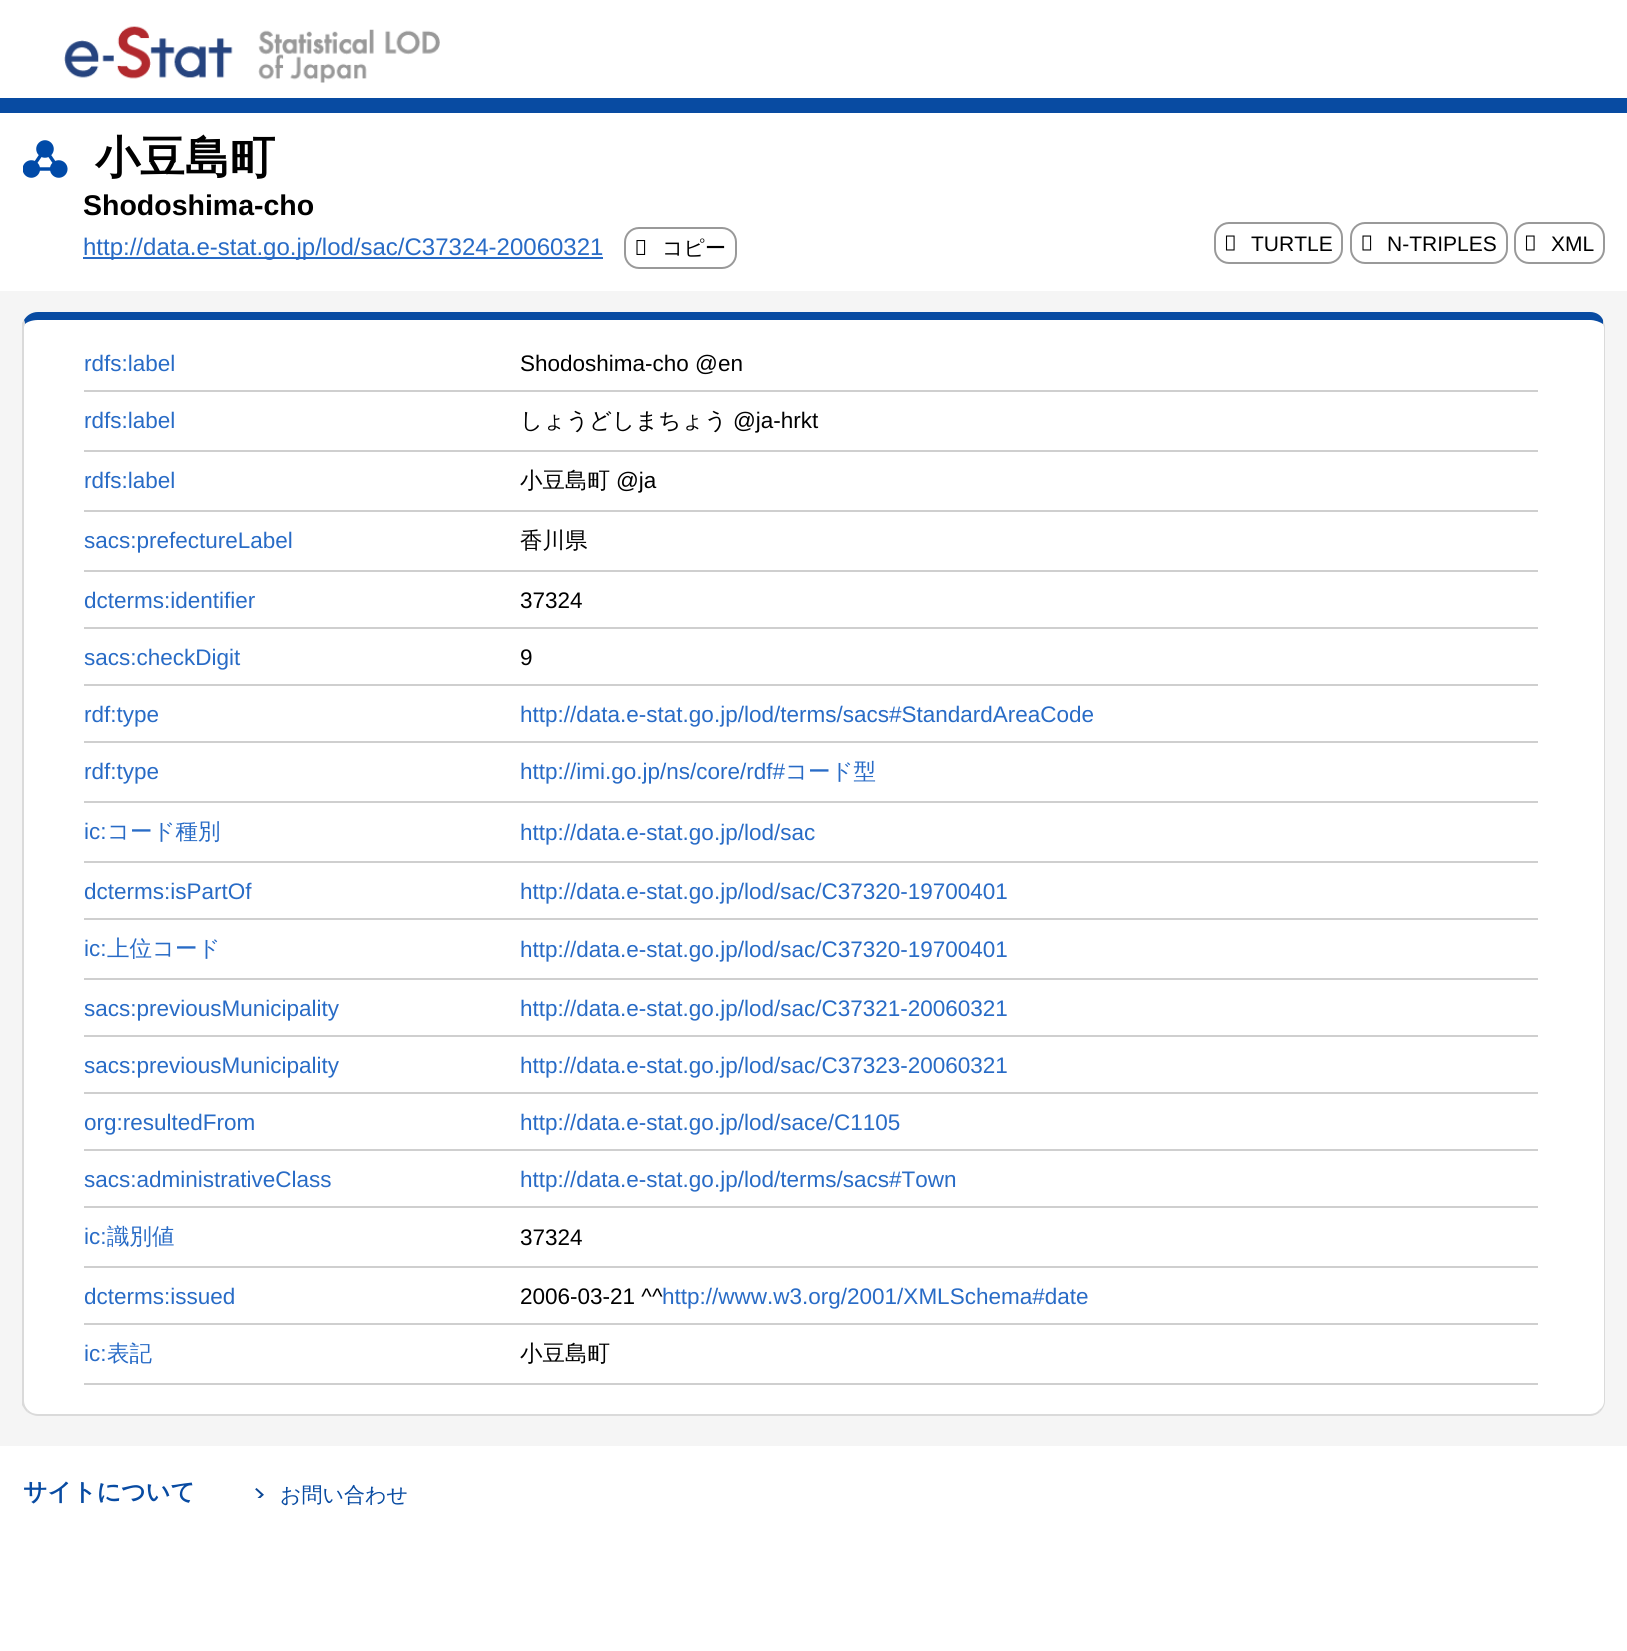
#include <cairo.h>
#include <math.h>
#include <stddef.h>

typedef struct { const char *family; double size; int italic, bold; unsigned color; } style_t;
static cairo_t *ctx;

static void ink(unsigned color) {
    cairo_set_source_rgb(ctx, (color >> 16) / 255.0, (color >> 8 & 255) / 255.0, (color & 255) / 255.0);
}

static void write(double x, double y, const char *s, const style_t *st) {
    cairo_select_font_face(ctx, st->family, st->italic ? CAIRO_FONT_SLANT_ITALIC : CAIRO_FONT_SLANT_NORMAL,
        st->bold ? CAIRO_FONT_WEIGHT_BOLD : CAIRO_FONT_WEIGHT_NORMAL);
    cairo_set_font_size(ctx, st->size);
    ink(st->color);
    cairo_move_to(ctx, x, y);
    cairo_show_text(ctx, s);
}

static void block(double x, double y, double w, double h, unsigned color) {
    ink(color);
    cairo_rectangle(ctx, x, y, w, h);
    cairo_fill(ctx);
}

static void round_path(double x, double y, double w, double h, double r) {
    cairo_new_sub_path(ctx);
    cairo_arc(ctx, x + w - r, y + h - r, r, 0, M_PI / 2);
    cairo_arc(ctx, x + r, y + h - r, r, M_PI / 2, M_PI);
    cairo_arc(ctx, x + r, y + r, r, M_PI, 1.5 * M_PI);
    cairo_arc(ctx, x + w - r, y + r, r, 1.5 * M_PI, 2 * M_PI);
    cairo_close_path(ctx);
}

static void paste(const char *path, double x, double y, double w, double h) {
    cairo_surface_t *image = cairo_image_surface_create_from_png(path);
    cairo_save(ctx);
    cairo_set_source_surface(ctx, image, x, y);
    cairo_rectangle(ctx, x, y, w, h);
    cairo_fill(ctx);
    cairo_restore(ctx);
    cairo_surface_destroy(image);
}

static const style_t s1 = {"WenQuanYi Zen Hei", 45, 0, 1, 0x000000};
static const style_t s2 = {"Liberation Sans", 28.5, 0, 1, 0x000000};
static const style_t s3 = {"Liberation Sans", 24, 0, 0, 0x286bc6};
static const style_t s4 = {"WenQuanYi Zen Hei Medium", 21, 0, 0, 0x000000};
static const style_t s5 = {"Liberation Sans", 21, 0, 0, 0x000000};
static const style_t s6 = {"Liberation Sans", 22.5, 0, 0, 0x286bc6};
static const style_t s7 = {"Liberation Sans", 22.5, 0, 0, 0x000000};
static const style_t s8 = {"WenQuanYi Zen Hei Medium", 22.5, 0, 0, 0x000000};
static const style_t s9 = {"WenQuanYi Zen Hei Medium", 22.5, 0, 0, 0x286bc6};
static const style_t s10 = {"WenQuanYi Zen Hei", 24, 0, 1, 0x084ba2};
static const style_t s11 = {"WenQuanYi Zen Hei Medium", 21, 0, 0, 0x084ba2};

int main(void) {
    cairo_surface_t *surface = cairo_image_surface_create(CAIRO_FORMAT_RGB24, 1627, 1651);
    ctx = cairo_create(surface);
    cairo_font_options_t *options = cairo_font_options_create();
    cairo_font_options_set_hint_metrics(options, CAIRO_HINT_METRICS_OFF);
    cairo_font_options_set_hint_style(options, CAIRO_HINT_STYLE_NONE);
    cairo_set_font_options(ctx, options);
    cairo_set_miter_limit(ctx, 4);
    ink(0xffffff);
    cairo_paint(ctx);
    block(0, 98, 1627, 15, 0x084ba2);
    paste("pic1.png", 64, 26, 376, 57);
    paste("pic2.png", 23, 140, 45, 38);
    write(95, 173, "小豆島町", &s1);
    write(83, 215, "Shodoshima-cho", &s2);
    block(83, 257, 520, 2, 0x286bc6);
    write(83, 255, "http://data.e-stat.go.jp/lod/sac/C37324-20060321", &s3);
    round_path(625, 228, 111, 40, 14);
    ink(0x999999);
    cairo_stroke(ctx);
    paste("pic3.png", 636, 240, 10, 15);
    write(662, 255, "コピー", &s4);
    round_path(1215, 223, 127, 40, 14);
    ink(0x999999);
    cairo_stroke(ctx);
    paste("pic4.png", 1225, 235, 10, 16);
    write(1251, 251, "TURTLE", &s5);
    round_path(1351, 223, 156, 40, 14);
    ink(0x999999);
    cairo_stroke(ctx);
    paste("pic5.png", 1362, 235, 10, 16);
    write(1387, 251, "N-TRIPLES", &s5);
    round_path(1515, 223, 89, 40, 14);
    ink(0x999999);
    cairo_stroke(ctx);
    paste("pic4.png", 1525, 235, 10, 16);
    write(1551, 251, "XML", &s5);
    block(0, 291, 1627, 1155, 0xf5f5f5);
    ink(0xffffff);
    cairo_new_path(ctx);
    cairo_move_to(ctx, 38, 320);
    cairo_line_to(ctx, 1590, 320);
    cairo_curve_to(ctx, 1597, 320, 1604, 323, 1604, 327);
    cairo_line_to(ctx, 1604, 1401);
    cairo_curve_to(ctx, 1604, 1408, 1597, 1414, 1590, 1414);
    cairo_line_to(ctx, 38, 1414);
    cairo_curve_to(ctx, 30, 1414, 24, 1408, 24, 1401);
    cairo_line_to(ctx, 24, 327);
    cairo_curve_to(ctx, 24, 323, 30, 320, 38, 320);
    cairo_close_path(ctx);
    cairo_fill(ctx);
    ink(0x084ba2);
    cairo_new_path(ctx);
    cairo_move_to(ctx, 38, 312);
    cairo_curve_to(ctx, 32, 312, 27, 315, 24, 320);
    cairo_line_to(ctx, 25, 324);
    cairo_curve_to(ctx, 27, 322, 32, 320, 38, 320);
    cairo_line_to(ctx, 1590, 320);
    cairo_curve_to(ctx, 1595, 320, 1600, 322, 1603, 324);
    cairo_line_to(ctx, 1603, 320);
    cairo_curve_to(ctx, 1601, 315, 1596, 312, 1590, 312);
    cairo_close_path(ctx);
    cairo_fill(ctx);
    ink(0xdadada);
    cairo_new_path(ctx);
    cairo_move_to(ctx, 1605, 1401);
    cairo_line_to(ctx, 1605, 327);
    cairo_curve_to(ctx, 1605, 325, 1604, 322, 1603, 320);
    cairo_line_to(ctx, 1603, 324);
    cairo_line_to(ctx, 1604, 327);
    cairo_line_to(ctx, 1604, 1401);
    cairo_curve_to(ctx, 1604, 1405, 1602, 1408, 1599, 1410);
    cairo_line_to(ctx, 1600, 1412);
    cairo_curve_to(ctx, 1603, 1409, 1605, 1405, 1605, 1401);
    cairo_close_path(ctx);
    cairo_fill(ctx);
    cairo_new_path(ctx);
    cairo_move_to(ctx, 38, 1416);
    cairo_line_to(ctx, 1590, 1416);
    cairo_curve_to(ctx, 1594, 1416, 1598, 1414, 1600, 1412);
    cairo_line_to(ctx, 1599, 1410);
    cairo_curve_to(ctx, 1597, 1413, 1593, 1414, 1590, 1414);
    cairo_line_to(ctx, 38, 1414);
    cairo_curve_to(ctx, 34, 1414, 31, 1413, 28, 1410);
    cairo_line_to(ctx, 27, 1412);
    cairo_curve_to(ctx, 30, 1414, 34, 1416, 38, 1416);
    cairo_close_path(ctx);
    cairo_fill(ctx);
    cairo_new_path(ctx);
    cairo_move_to(ctx, 22, 323);
    cairo_line_to(ctx, 24, 320);
    cairo_line_to(ctx, 25, 324);
    cairo_line_to(ctx, 24, 327);
    cairo_line_to(ctx, 24, 1401);
    cairo_curve_to(ctx, 24, 1405, 26, 1408, 28, 1410);
    cairo_line_to(ctx, 27, 1412);
    cairo_curve_to(ctx, 25, 1410, 23, 1407, 22, 1405);
    cairo_close_path(ctx);
    cairo_fill(ctx);
    write(84, 371, "rdfs:label", &s6);
    block(84, 390, 1454, 2, 0xcfcfcf);
    write(520, 371, "Shodoshima-cho @en", &s7);
    write(84, 428, "rdfs:label", &s6);
    block(84, 450, 1454, 2, 0xcfcfcf);
    write(520, 428, "しょうどしまちょう", &s8);
    write(733, 428, "@ja-hrkt", &s7);
    write(84, 488, "rdfs:label", &s6);
    block(84, 510, 1454, 2, 0xcfcfcf);
    write(520, 488, "小豆島町", &s8);
    write(616, 488, "@ja", &s7);
    write(84, 548, "sacs:prefectureLabel", &s6);
    block(84, 570, 1454, 2, 0xcfcfcf);
    write(520, 548, "香川県", &s8);
    write(84, 608, "dcterms:identifier", &s6);
    block(84, 627, 1454, 2, 0xcfcfcf);
    write(520, 608, "37324", &s7);
    write(84, 665, "sacs:checkDigit", &s6);
    block(84, 684, 1454, 2, 0xcfcfcf);
    write(520, 665, "9", &s7);
    write(84, 722, "rdf:type", &s6);
    block(84, 741, 1454, 2, 0xcfcfcf);
    write(520, 722, "http://data.e-stat.go.jp/lod/terms/sacs#StandardAreaCode", &s6);
    write(84, 779, "rdf:type", &s6);
    block(84, 801, 1454, 2, 0xcfcfcf);
    write(520, 779, "http://imi.go.jp/ns/core/rdf#", &s6);
    write(785, 779, "コード型", &s9);
    write(84, 839, "ic:", &s6);
    write(107, 839, "コード種別", &s9);
    block(84, 861, 1454, 2, 0xcfcfcf);
    write(520, 840, "http://data.e-stat.go.jp/lod/sac", &s6);
    write(84, 899, "dcterms:isPartOf", &s6);
    block(84, 918, 1454, 2, 0xcfcfcf);
    write(520, 899, "http://data.e-stat.go.jp/lod/sac/C37320-19700401", &s6);
    write(84, 956, "ic:", &s6);
    write(107, 956, "上位コード", &s9);
    block(84, 978, 1454, 2, 0xcfcfcf);
    write(520, 957, "http://data.e-stat.go.jp/lod/sac/C37320-19700401", &s6);
    write(84, 1016, "sacs:previousMunicipality", &s6);
    block(84, 1035, 1454, 2, 0xcfcfcf);
    write(520, 1016, "http://data.e-stat.go.jp/lod/sac/C37321-20060321", &s6);
    write(84, 1073, "sacs:previousMunicipality", &s6);
    block(84, 1092, 1454, 2, 0xcfcfcf);
    write(520, 1073, "http://data.e-stat.go.jp/lod/sac/C37323-20060321", &s6);
    write(84, 1130, "org:resultedFrom", &s6);
    block(84, 1149, 1454, 2, 0xcfcfcf);
    write(520, 1130, "http://data.e-stat.go.jp/lod/sace/C1105", &s6);
    write(84, 1187, "sacs:administrativeClass", &s6);
    block(84, 1206, 1454, 2, 0xcfcfcf);
    write(520, 1187, "http://data.e-stat.go.jp/lod/terms/sacs#Town", &s6);
    write(84, 1244, "ic:", &s6);
    write(107, 1244, "識別値", &s9);
    block(84, 1266, 1454, 2, 0xcfcfcf);
    write(520, 1245, "37324", &s7);
    write(84, 1304, "dcterms:issued", &s6);
    block(84, 1323, 1454, 2, 0xcfcfcf);
    write(520, 1304, "2006-03-21 ^^", &s7);
    write(662, 1304, "http://www.w3.org/2001/XMLSchema#date", &s6);
    write(84, 1361, "ic:", &s6);
    write(107, 1361, "表記", &s9);
    block(84, 1383, 1454, 2, 0xcfcfcf);
    write(520, 1361, "小豆島町", &s8);
    write(23, 1500, "サイトについて", &s10);
    paste("pic6.png", 255, 1488, 9, 10);
    write(280, 1502, "お問い合わせ", &s11);
    cairo_surface_write_to_png(surface, "screenshot.png");
    cairo_font_options_destroy(options);
    cairo_destroy(ctx);
    cairo_surface_destroy(surface);
    return 0;
}
